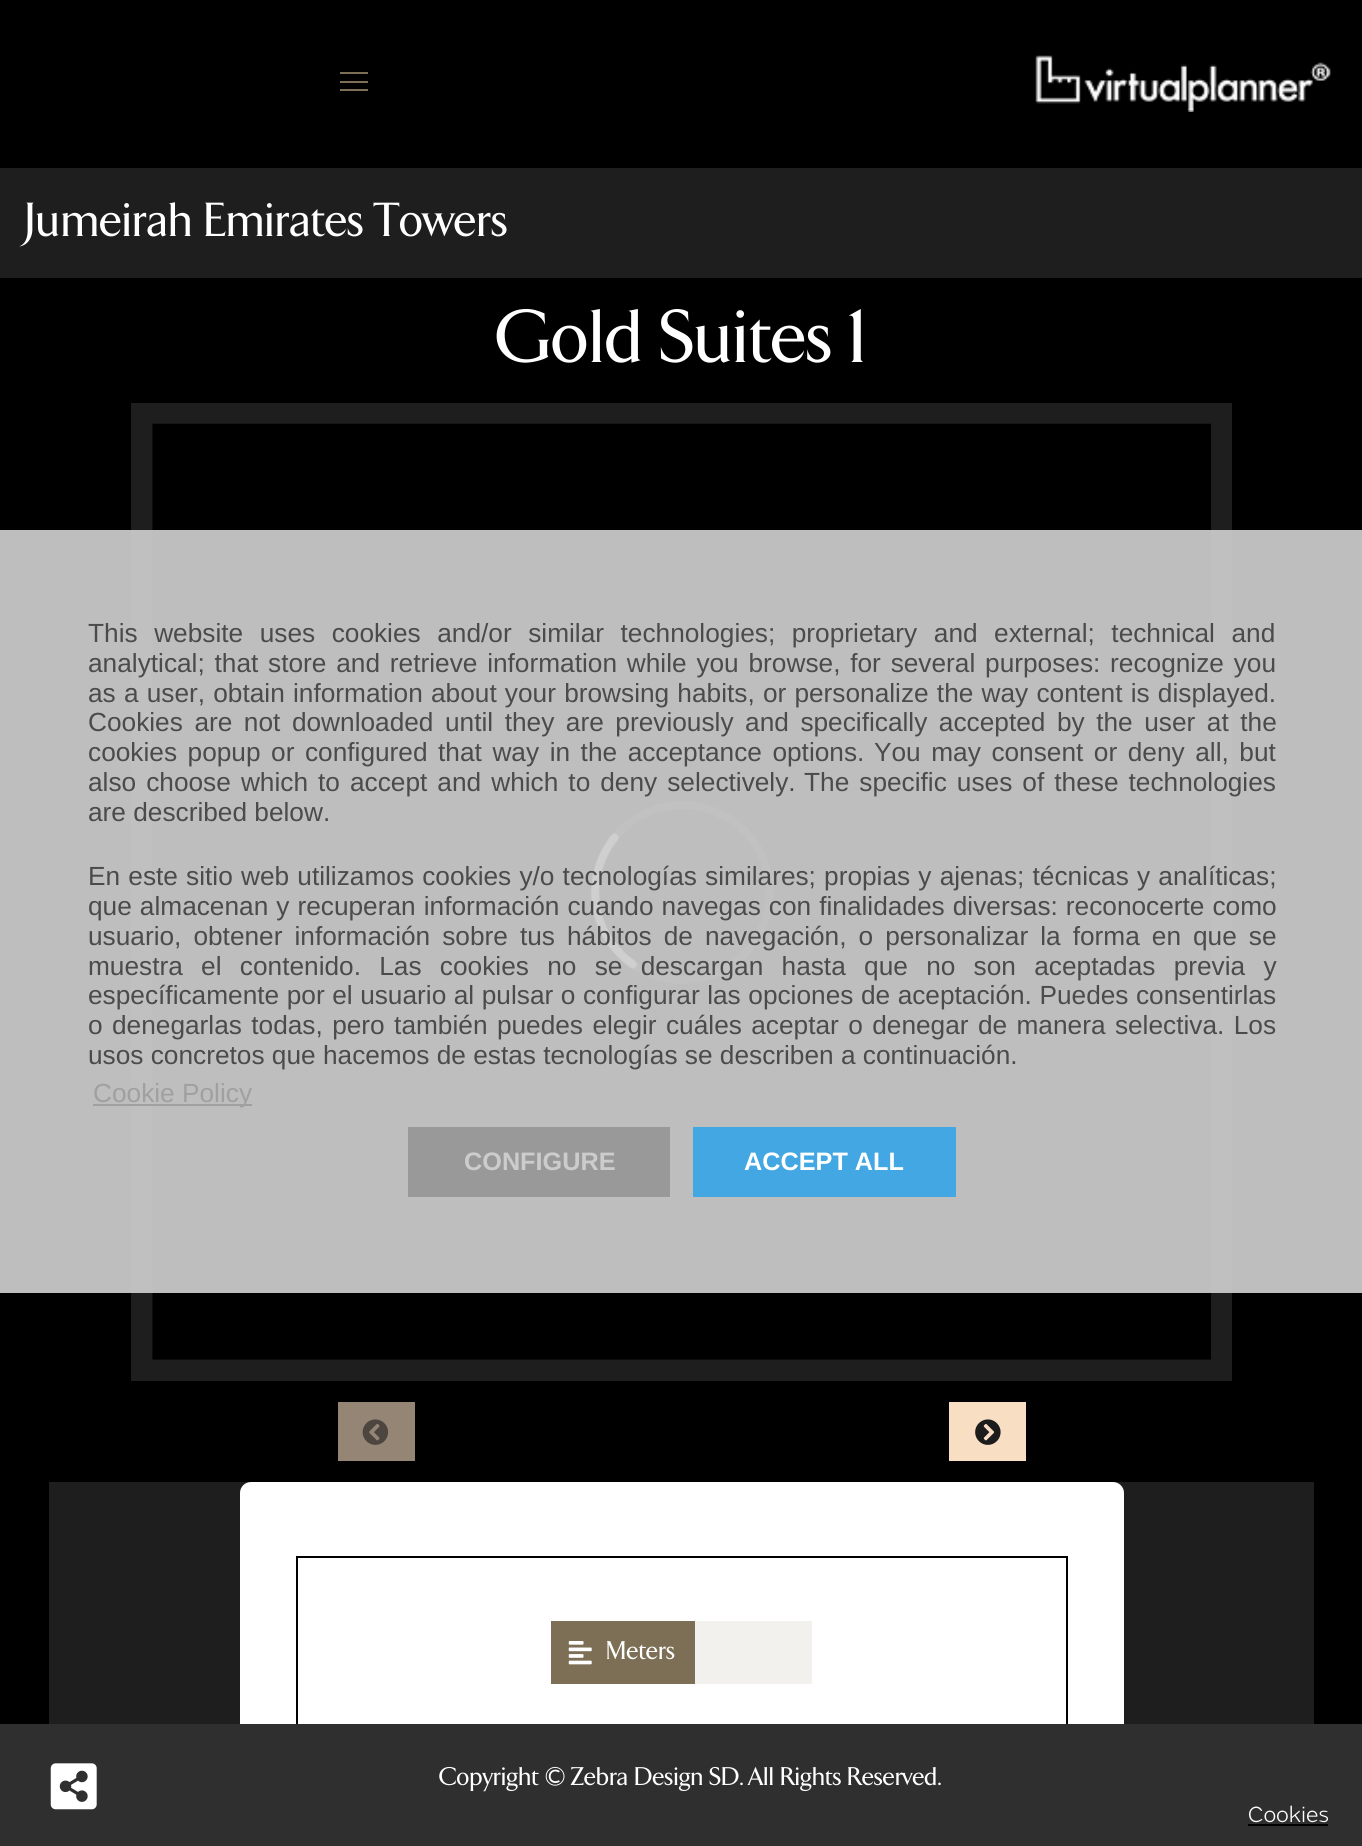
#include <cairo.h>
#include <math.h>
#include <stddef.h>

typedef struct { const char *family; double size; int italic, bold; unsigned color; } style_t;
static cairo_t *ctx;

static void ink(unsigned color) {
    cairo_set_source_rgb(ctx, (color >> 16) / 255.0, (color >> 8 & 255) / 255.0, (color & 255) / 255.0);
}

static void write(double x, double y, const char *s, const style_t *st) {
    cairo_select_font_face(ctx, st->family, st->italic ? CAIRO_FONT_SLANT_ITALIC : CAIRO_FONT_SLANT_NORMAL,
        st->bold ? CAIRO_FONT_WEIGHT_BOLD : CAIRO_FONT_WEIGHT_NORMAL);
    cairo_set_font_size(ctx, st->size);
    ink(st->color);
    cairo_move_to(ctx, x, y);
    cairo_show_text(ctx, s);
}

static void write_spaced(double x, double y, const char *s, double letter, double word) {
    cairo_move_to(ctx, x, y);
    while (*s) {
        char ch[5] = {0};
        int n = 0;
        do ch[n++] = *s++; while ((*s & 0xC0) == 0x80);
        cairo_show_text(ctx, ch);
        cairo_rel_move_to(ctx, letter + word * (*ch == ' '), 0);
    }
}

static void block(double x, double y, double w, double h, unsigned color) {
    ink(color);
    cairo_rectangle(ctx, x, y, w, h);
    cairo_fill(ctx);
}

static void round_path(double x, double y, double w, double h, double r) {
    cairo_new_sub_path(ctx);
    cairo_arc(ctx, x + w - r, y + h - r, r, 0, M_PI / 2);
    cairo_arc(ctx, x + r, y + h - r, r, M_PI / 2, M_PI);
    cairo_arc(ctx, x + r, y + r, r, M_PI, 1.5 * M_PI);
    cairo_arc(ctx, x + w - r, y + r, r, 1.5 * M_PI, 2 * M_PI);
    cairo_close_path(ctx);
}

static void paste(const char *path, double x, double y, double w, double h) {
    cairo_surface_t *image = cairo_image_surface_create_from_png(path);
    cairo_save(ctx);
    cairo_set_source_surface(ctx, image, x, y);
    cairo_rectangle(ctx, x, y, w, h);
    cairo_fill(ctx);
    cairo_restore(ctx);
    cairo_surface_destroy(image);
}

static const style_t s1 = {"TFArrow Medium", 49, 0, 0, 0xffffff};
static const style_t s2 = {"TFArrow Medium", 77, 0, 0, 0xffffff};
static const style_t s3 = {"TFArrow Medium", 26.25, 0, 0, 0xffffff};
static const style_t s4 = {"Liberation Sans", 26.25, 0, 0, 0x4c4b4b};
static const style_t s5 = {"Liberation Sans", 26.25, 0, 0, 0xa0a0a0};
static const style_t s6 = {"Liberation Sans", 25.25, 0, 1, 0xcccccc};
static const style_t s7 = {"Liberation Sans", 25.25, 0, 1, 0xffffff};
static const style_t s8 = {"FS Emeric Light", 23, 0, 0, 0xffffff};

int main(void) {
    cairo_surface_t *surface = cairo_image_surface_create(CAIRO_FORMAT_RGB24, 1362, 1846);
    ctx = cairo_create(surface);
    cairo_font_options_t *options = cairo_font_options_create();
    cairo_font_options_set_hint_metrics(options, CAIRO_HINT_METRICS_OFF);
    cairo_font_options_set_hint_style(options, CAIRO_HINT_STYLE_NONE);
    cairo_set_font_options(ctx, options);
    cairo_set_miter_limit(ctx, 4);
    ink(0x000000);
    cairo_paint(ctx);
    block(340, 72, 28, 2, 0x7c6f55);
    block(340, 81, 28, 2, 0x7c6f55);
    block(340, 89, 28, 2, 0x7c6f55);
    paste("pic1.png", 1035, 55, 296, 57);
    block(0, 168, 1362, 110, 0x1e1e1e);
    write(25, 236, "Jumeirah Emirates Towers", &s1);
    write(496, 362, "Gold Suites 1", &s2);
    block(131, 403, 1101, 978, 0x1e1e1e);
    paste("pic2.png", 152, 423, 1059, 937);
    block(338, 1402, 77, 59, 0x958575);
    paste("pic3.png", 362, 1419, 27, 26);
    block(949, 1402, 77, 59, 0xf8dec3);
    paste("pic4.png", 975, 1419, 26, 26);
    block(49, 1482, 1265, 242, 0x1e1e1e);
    ink(0xffffff);
    round_path(240, 1482, 884, 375, 11);
    cairo_fill(ctx);
    block(695, 1621, 117, 63, 0xf2f1ee);
    block(296, 1556, 772, 2, 0x000000);
    block(1066, 1556, 2, 168, 0x000000);
    block(296, 1556, 2, 168, 0x000000);
    block(551, 1621, 144, 63, 0x7c6f55);
    paste("pic5.png", 568, 1641, 24, 24);
    write(606, 1659, "Meters", &s3);
    cairo_set_source_rgba(ctx, 0.8, 0.8, 0.8, 0.93);
    cairo_rectangle(ctx, 0, 530, 1362, 763);
    cairo_fill(ctx);
    cairo_select_font_face(ctx, "Liberation Sans", CAIRO_FONT_SLANT_NORMAL, CAIRO_FONT_WEIGHT_NORMAL);
    ink(0x4c4b4b);
    write_spaced(88, 642, "This website uses cookies and/or similar technologies; proprietary and external; technical and", 0, 9.25);
    write_spaced(88, 672, "analytical; that store and retrieve information while you browse, for several purposes: recognize you", 0, 2.5);
    write_spaced(88, 702, "as a user, obtain information about your browsing habits, or personalize the way content is displayed.", 0, 0.9);
    write_spaced(88, 731, "Cookies are not downloaded until they are previously and specifically accepted by the user at the", 0, 4.25);
    write_spaced(88, 761, "cookies popup or configured that way in the acceptance options.", 0, 3.25);
    write_spaced(874, 761, "You may consent or deny all, but", 0, 3.25);
    write_spaced(88, 791, "also choose which to accept and which to deny selectively.", 0, 2.75);
    write_spaced(804, 791, "The specific uses of these technologies", 0, 2.75);
    write(88, 821, "are described below.", &s4);
    write_spaced(88, 885, "En este sitio web utilizamos cookies y/o tecnologías similares; propias y ajenas; técnicas y analíticas;", 0, 0.9);
    write_spaced(88, 915, "que almacenan y recuperan información cuando navegas con finalidades diversas: reconocerte como", 0, 0.75);
    write_spaced(88, 945, "usuario, obtener información sobre tus hábitos de navegación, o personalizar la forma en que se", 0, 4.75);
    write_spaced(88, 975, "muestra el contenido. Las cookies no se descargan hasta que no son aceptadas previa y", 0, 11);
    write_spaced(88, 1004, "específicamente por el usuario al pulsar o configurar las opciones de aceptación. Puedes consentirlas", 0, 0.25);
    write_spaced(88, 1034, "o denegarlas todas, pero también puedes elegir cuáles aceptar o denegar de manera selectiva. Los", 0, 2.1);
    write(88, 1064, "usos concretos que hacemos de estas tecnologías se describen a continuación.", &s4);
    block(93, 1104, 159, 2, 0xa0a0a0);
    write(93, 1102, "Cookie Policy", &s5);
    block(408, 1127, 262, 70, 0x999999);
    write(464, 1170, "CONFIGURE", &s6);
    block(693, 1127, 263, 70, 0x42a7e2);
    write(744, 1170, "ACCEPT ALL", &s7);
    block(0, 1724, 1362, 122, 0x2f2f2f);
    paste("pic6.png", 50, 1763, 47, 47);
    write(439, 1785, "Copyright © Zebra Design SD. All Rights Reserved.", &s3);
    write(1248, 1822, "Cookies", &s8);
    block(1248, 1824, 80, 2, 0x000000);
    cairo_surface_write_to_png(surface, "screenshot.png");
    cairo_font_options_destroy(options);
    cairo_destroy(ctx);
    cairo_surface_destroy(surface);
    return 0;
}
